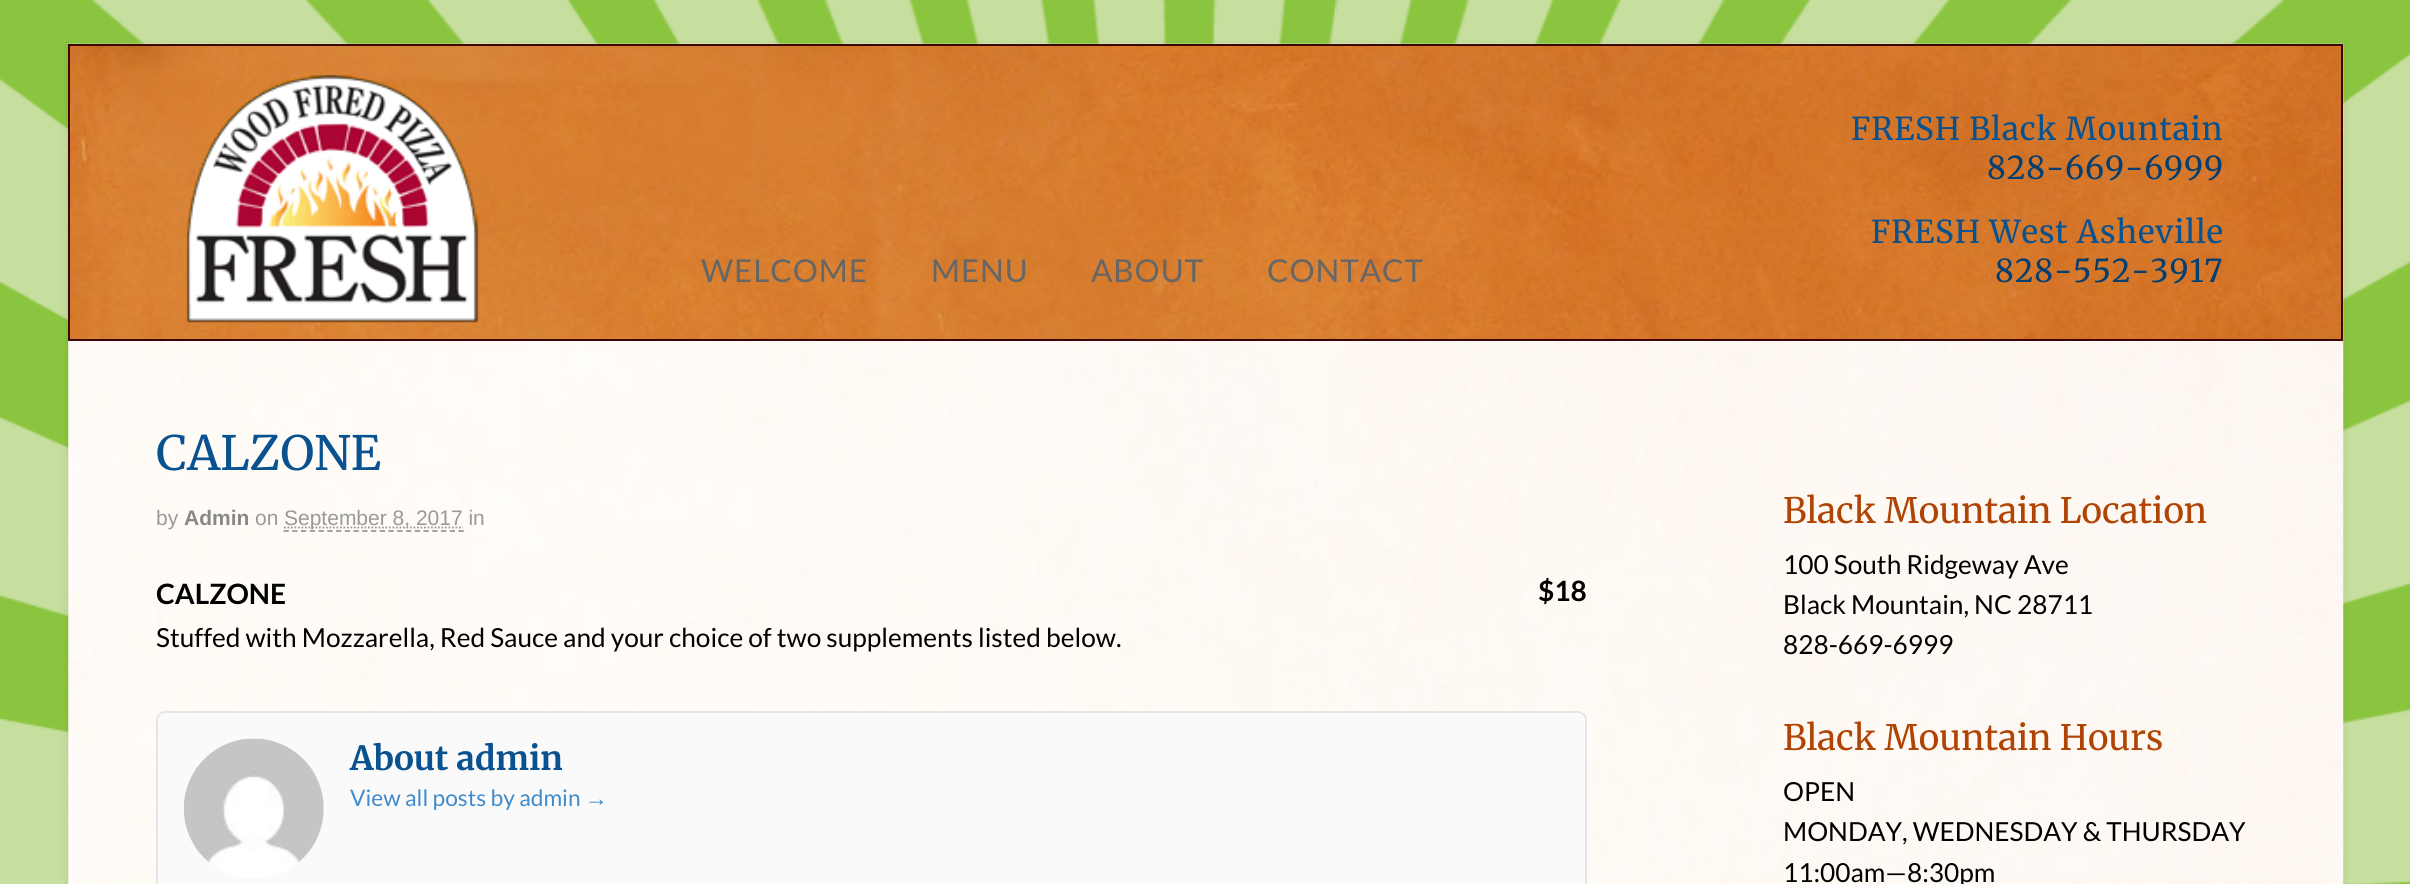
#include <cairo.h>
#include <math.h>
#include <stddef.h>

typedef struct { const char *family; double size; int italic, bold; unsigned color; } style_t;
static cairo_t *ctx;

static void ink(unsigned color) {
    cairo_set_source_rgb(ctx, (color >> 16) / 255.0, (color >> 8 & 255) / 255.0, (color & 255) / 255.0);
}

static void write(double x, double y, const char *s, const style_t *st) {
    cairo_select_font_face(ctx, st->family, st->italic ? CAIRO_FONT_SLANT_ITALIC : CAIRO_FONT_SLANT_NORMAL,
        st->bold ? CAIRO_FONT_WEIGHT_BOLD : CAIRO_FONT_WEIGHT_NORMAL);
    cairo_set_font_size(ctx, st->size);
    ink(st->color);
    cairo_move_to(ctx, x, y);
    cairo_show_text(ctx, s);
}

static void write_spaced(double x, double y, const char *s, double letter, double word) {
    cairo_move_to(ctx, x, y);
    while (*s) {
        char ch[5] = {0};
        int n = 0;
        do ch[n++] = *s++; while ((*s & 0xC0) == 0x80);
        cairo_show_text(ctx, ch);
        cairo_rel_move_to(ctx, letter + word * (*ch == ' '), 0);
    }
}

static void round_path(double x, double y, double w, double h, double r) {
    cairo_new_sub_path(ctx);
    cairo_arc(ctx, x + w - r, y + h - r, r, 0, M_PI / 2);
    cairo_arc(ctx, x + r, y + h - r, r, M_PI / 2, M_PI);
    cairo_arc(ctx, x + r, y + r, r, M_PI, 1.5 * M_PI);
    cairo_arc(ctx, x + w - r, y + r, r, 1.5 * M_PI, 2 * M_PI);
    cairo_close_path(ctx);
}

static void blur_box(double x, double y, double w, double h, double r, double blur, double alpha) {
    cairo_push_group_with_content(ctx, CAIRO_CONTENT_ALPHA);
    cairo_set_operator(ctx, CAIRO_OPERATOR_SOURCE);
    for (int i = 15; i >= -15 && fmin(w, h) + blur * i / 3 > 0; i -= 2) {
        double e = blur * i / 6;
        cairo_set_source_rgba(ctx, 0, 0, 0, alpha * erfc((i - 1) / 8.5) / 2);
        round_path(x - e, y - e, w + 2 * e, h + 2 * e, fmax(0, fmin(r + e + blur * .6, fmin(w, h) / 2 + e)));
        cairo_fill(ctx);
    }
    cairo_pattern_t *soft = cairo_pop_group(ctx);
    cairo_mask(ctx, soft);
    cairo_pattern_destroy(soft);
}

static void paste(const char *path, double x, double y, double w, double h) {
    cairo_surface_t *image = cairo_image_surface_create_from_png(path);
    cairo_save(ctx);
    cairo_set_source_surface(ctx, image, x, y);
    cairo_rectangle(ctx, x, y, w, h);
    cairo_fill(ctx);
    cairo_restore(ctx);
    cairo_surface_destroy(image);
}

static const style_t s1 = {"Merriweather", 47.25, 0, 0, 0x09528f};
static const style_t s2 = {"Liberation Sans", 21, 0, 0, 0x999999};
static const style_t s3 = {"Liberation Sans", 21, 0, 1, 0x888888};
static const style_t s4 = {"Lato", 28, 0, 1, 0x000000};
static const style_t s5 = {"Lato", 26.25, 0, 0, 0x000000};
static const style_t s6 = {"Merriweather", 33.25, 0, 1, 0x09528f};
static const style_t s7 = {"Lato", 22.75, 0, 0, 0x428bca};
static const style_t s8 = {"Liberation Sans", 22.75, 0, 0, 0x428bca};
static const style_t s9 = {"Merriweather", 35, 0, 0, 0xb04404};

int main(void) {
    cairo_surface_t *surface = cairo_image_surface_create(CAIRO_FORMAT_RGB24, 2410, 884);
    ctx = cairo_create(surface);
    cairo_font_options_t *options = cairo_font_options_create();
    cairo_font_options_set_hint_metrics(options, CAIRO_HINT_METRICS_OFF);
    cairo_font_options_set_hint_style(options, CAIRO_HINT_STYLE_NONE);
    cairo_set_font_options(ctx, options);
    cairo_set_miter_limit(ctx, 4);
    ink(0xffffff);
    cairo_paint(ctx);
    paste("pic1.png", 0, 0, 2410, 884);
    ink(0x000000);
    blur_box(68, 46, 2275, 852, 0, 4.5, 0.1);
    paste("pic2.png", 68, 43, 2276, 841);
    paste("pic3.png", 70, 46, 2271, 293);
    cairo_rectangle(ctx, 69, 45, 2273, 295);
    ink(0x3b0603);
    cairo_stroke(ctx);
    cairo_select_font_face(ctx, "Lato", CAIRO_FONT_SLANT_NORMAL, CAIRO_FONT_WEIGHT_NORMAL);
    cairo_set_font_size(ctx, 31.5);
    ink(0x666666);
    write_spaced(701, 282, "WELCOME", 0.9, 0);
    write_spaced(931, 282, "MENU", 0.9, 0);
    write_spaced(1091, 282, "ABOUT", 0.9, 0);
    write_spaced(1267, 282, "CONTACT", 0.9, 0);
    paste("pic4.png", 186, 74, 293, 249);
    cairo_select_font_face(ctx, "Merriweather", CAIRO_FONT_SLANT_NORMAL, CAIRO_FONT_WEIGHT_NORMAL);
    ink(0x09528f);
    write_spaced(1851, 140, "FRESH Black Mountain", 0.9, 0);
    ink(0x043f70);
    write_spaced(1987, 179, "828-669-6999", 0.9, 0);
    ink(0x09528f);
    write_spaced(1871, 243, "FRESH West Asheville", 0.9, 0);
    ink(0x043f70);
    write_spaced(1995, 282, "828-552-3917", 0.9, 0);
    write(156, 470, "CALZONE", &s1);
    write(156, 525, "by", &s2);
    write(184, 525, "Admin", &s3);
    write(255, 525, "on", &s2);
    cairo_new_path(ctx);
    cairo_move_to(ctx, 284, 527.5);
    cairo_line_to(ctx, 463, 527.5);
    cairo_set_line_width(ctx, 1.8);
    cairo_set_dash(ctx, (double[]){1.75, 1.75}, 2, 0);
    cairo_stroke(ctx);
    write(284, 525, "September 8, 2017 in", &s2);
    cairo_new_path(ctx);
    cairo_move_to(ctx, 283.5, 531);
    cairo_line_to(ctx, 464, 531);
    cairo_set_dash(ctx, (double[]){5.25, 3.5}, 2, 0);
    cairo_stroke(ctx);
    write(156, 604, "CALZONE", &s4);
    write(1538, 601, "$18", &s4);
    write(156, 647, "Stuffed with Mozzarella, Red Sauce and your choice of two supplements listed below.", &s5);
    ink(0xfafafa);
    round_path(157, 712, 1429, 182, 8);
    cairo_fill_preserve(ctx);
    ink(0xe6e6e6);
    cairo_set_line_width(ctx, 2);
    cairo_set_dash(ctx, NULL, 0, 0);
    cairo_stroke(ctx);
    paste("pic5.png", 184, 738, 140, 140);
    write(350, 770, "About admin", &s6);
    write(350, 806, "View all posts by admin", &s7);
    write(585, 806, "→", &s8);
    write(1783, 523, "Black Mountain Location", &s9);
    write(1783, 574, "100 South Ridgeway Ave", &s5);
    write(1783, 614, "Black Mountain, NC 28711", &s5);
    write(1783, 654, "828-669-6999", &s5);
    write(1783, 750, "Black Mountain Hours", &s9);
    write(1783, 801, "OPEN", &s5);
    write(1783, 841, "MONDAY, WEDNESDAY & THURSDAY", &s5);
    write(1783, 882, "11:00am—8:30pm", &s5);
    cairo_surface_write_to_png(surface, "screenshot.png");
    cairo_font_options_destroy(options);
    cairo_destroy(ctx);
    cairo_surface_destroy(surface);
    return 0;
}
